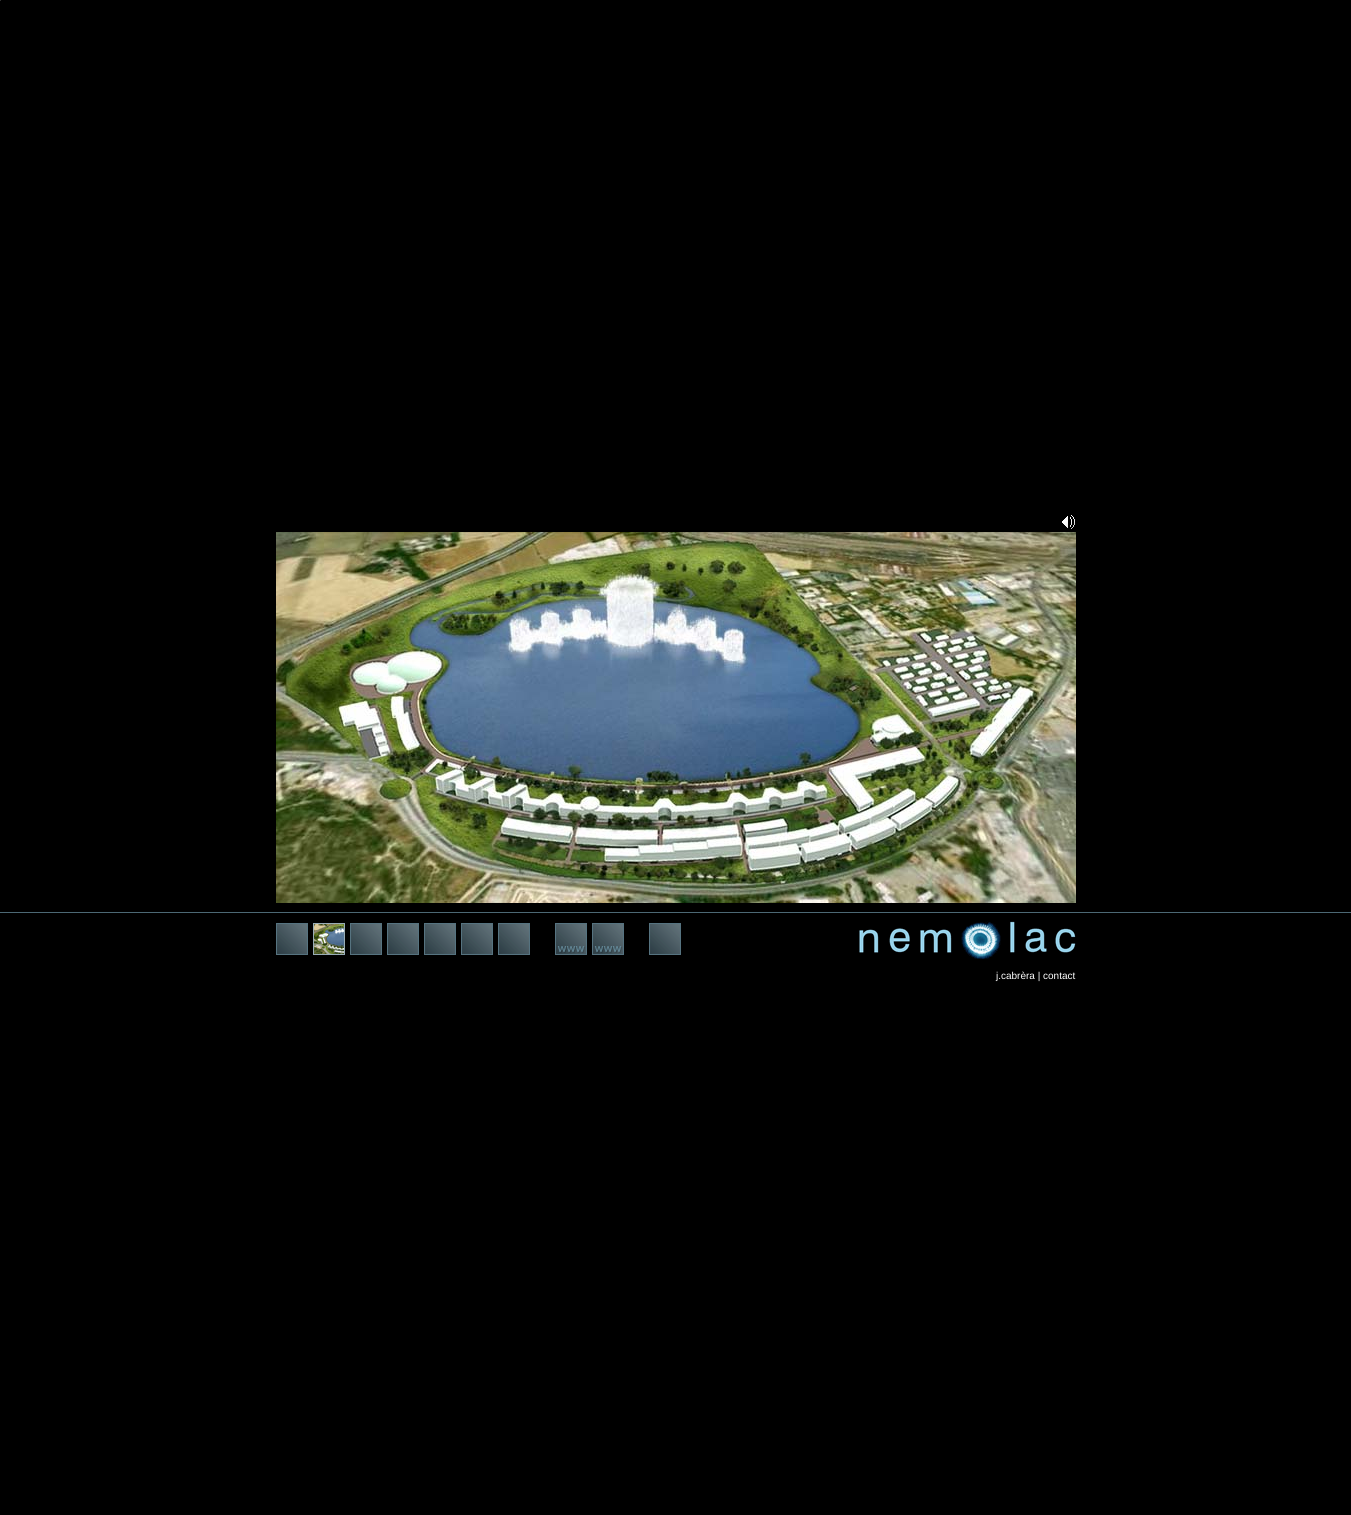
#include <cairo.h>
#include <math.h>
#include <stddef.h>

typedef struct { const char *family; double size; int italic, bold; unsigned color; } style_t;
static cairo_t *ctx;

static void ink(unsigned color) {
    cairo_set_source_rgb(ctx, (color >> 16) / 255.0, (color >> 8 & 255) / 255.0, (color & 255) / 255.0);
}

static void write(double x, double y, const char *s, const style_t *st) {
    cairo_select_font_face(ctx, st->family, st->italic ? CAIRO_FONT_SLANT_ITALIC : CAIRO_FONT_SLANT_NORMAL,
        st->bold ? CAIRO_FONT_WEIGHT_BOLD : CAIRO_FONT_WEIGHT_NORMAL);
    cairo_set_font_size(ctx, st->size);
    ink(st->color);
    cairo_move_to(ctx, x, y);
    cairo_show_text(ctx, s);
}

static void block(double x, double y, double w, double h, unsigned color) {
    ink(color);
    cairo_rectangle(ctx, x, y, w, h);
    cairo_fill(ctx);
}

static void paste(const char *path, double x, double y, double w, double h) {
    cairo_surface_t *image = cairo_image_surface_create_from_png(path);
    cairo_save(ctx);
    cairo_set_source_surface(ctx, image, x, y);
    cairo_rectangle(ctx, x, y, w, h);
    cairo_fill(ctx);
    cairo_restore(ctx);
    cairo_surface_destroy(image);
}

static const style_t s1 = {"Liberation Sans", 10, 0, 0, 0xffffff};

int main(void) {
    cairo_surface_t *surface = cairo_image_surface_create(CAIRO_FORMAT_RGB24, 1351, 1515);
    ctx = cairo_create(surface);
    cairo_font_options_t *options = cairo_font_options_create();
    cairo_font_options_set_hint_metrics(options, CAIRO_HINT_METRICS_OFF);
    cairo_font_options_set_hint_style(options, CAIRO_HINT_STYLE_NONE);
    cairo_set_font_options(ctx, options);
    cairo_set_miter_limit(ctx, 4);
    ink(0x000000);
    cairo_paint(ctx);
    block(0, 0, 1, 1, 0x323232);
    paste("pic1.png", 1062, 515, 13, 14);
    paste("pic2.png", 276, 532, 800, 371);
    block(0, 912, 1351, 1, 0x4c6874);
    paste("pic3.png", 276, 923, 32, 32);
    paste("pic4.png", 313, 923, 32, 32);
    paste("pic3.png", 350, 923, 32, 32);
    paste("pic3.png", 387, 923, 32, 32);
    paste("pic3.png", 424, 923, 32, 32);
    paste("pic3.png", 461, 923, 32, 32);
    paste("pic3.png", 498, 923, 32, 32);
    paste("pic5.png", 555, 923, 32, 32);
    paste("pic5.png", 592, 923, 32, 32);
    paste("pic3.png", 649, 923, 32, 32);
    paste("pic6.png", 859, 921, 217, 38);
    write(996, 979, "j.cabrèra | contact", &s1);
    cairo_surface_write_to_png(surface, "screenshot.png");
    cairo_font_options_destroy(options);
    cairo_destroy(ctx);
    cairo_surface_destroy(surface);
    return 0;
}
